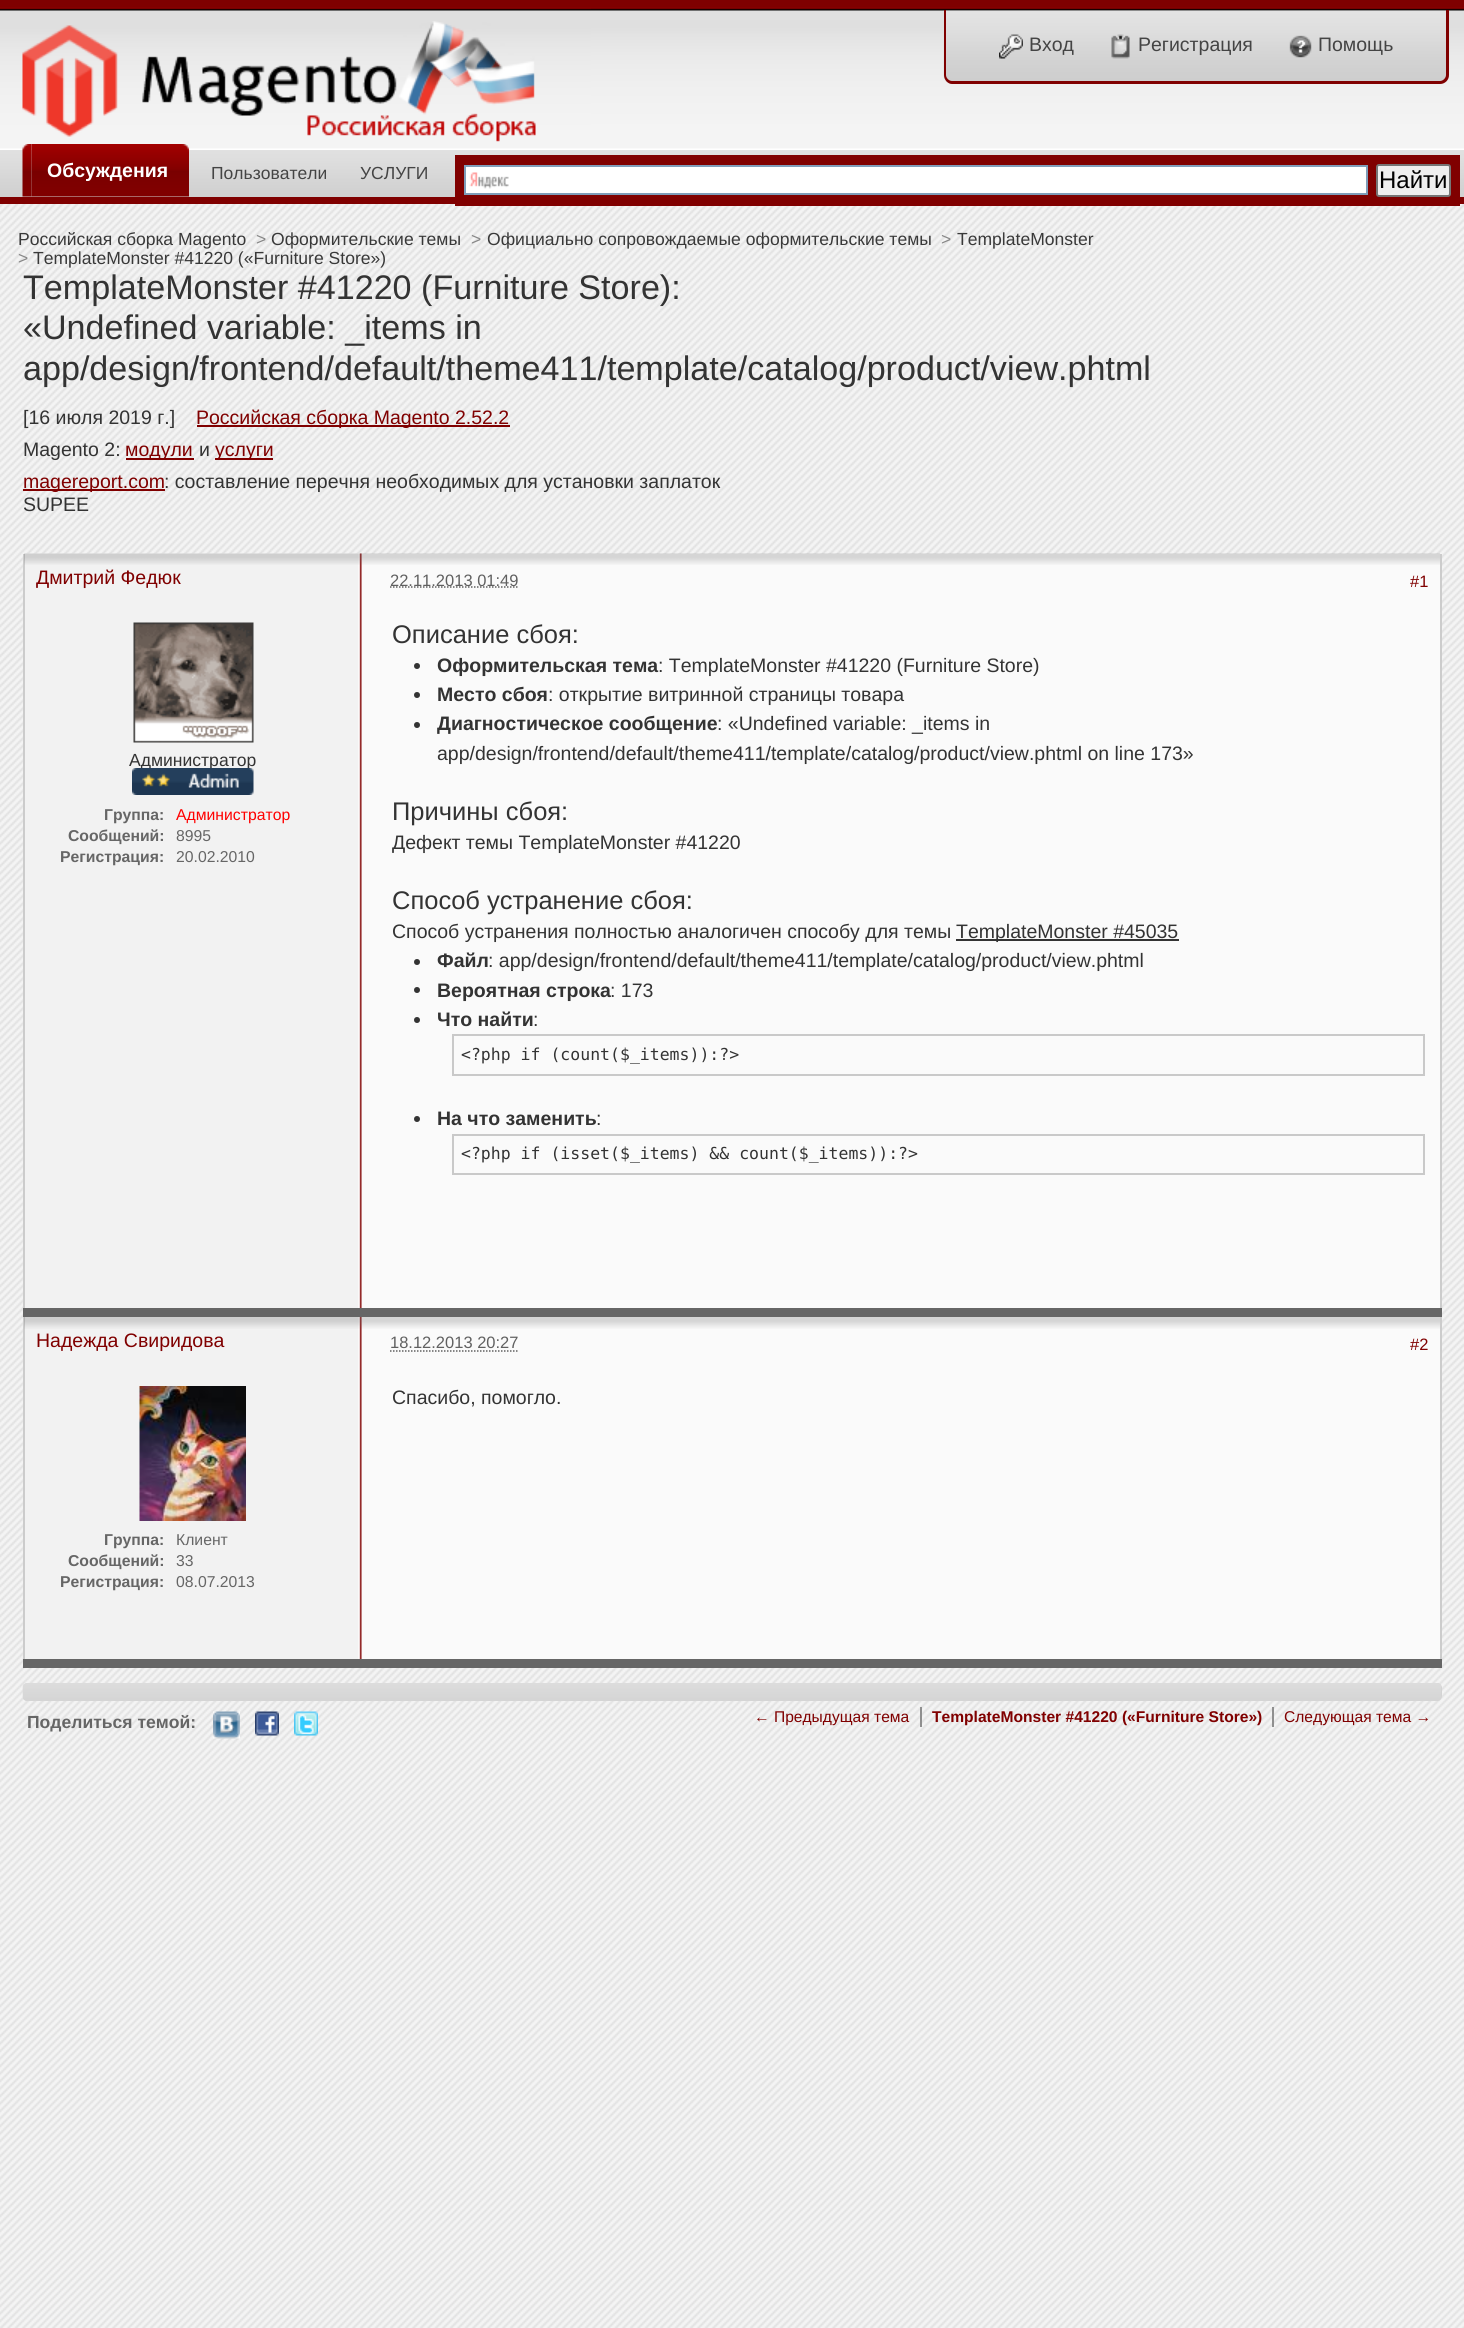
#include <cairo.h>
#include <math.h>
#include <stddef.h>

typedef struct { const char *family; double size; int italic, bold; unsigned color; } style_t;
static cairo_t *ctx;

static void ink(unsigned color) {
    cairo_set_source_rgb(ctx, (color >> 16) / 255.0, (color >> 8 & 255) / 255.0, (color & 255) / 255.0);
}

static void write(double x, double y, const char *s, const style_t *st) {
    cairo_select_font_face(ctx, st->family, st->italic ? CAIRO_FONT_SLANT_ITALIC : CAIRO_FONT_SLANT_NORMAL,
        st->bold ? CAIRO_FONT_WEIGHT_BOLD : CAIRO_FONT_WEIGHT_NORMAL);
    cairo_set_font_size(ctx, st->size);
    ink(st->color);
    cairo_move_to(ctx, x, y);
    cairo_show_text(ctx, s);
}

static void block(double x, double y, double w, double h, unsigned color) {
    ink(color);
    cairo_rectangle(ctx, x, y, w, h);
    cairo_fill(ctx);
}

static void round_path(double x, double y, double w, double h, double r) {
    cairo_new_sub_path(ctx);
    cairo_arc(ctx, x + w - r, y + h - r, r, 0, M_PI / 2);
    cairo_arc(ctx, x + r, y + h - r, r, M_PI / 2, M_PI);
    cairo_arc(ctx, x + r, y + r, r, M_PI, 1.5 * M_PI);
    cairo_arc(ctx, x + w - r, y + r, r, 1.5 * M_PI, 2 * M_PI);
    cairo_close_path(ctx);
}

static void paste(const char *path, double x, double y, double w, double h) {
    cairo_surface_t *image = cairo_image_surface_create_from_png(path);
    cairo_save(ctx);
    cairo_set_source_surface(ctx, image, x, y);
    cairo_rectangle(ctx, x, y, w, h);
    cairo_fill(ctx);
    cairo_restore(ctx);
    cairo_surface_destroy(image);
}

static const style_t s1 = {"Liberation Sans", 19.5, 0, 0, 0x444444};
static const style_t s2 = {"Liberation Sans", 19.5, 0, 1, 0xffffff};
static const style_t s3 = {"Liberation Sans", 17.5, 0, 0, 0x444444};
static const style_t s4 = {"Liberation Sans", 24, 0, 0, 0x000000};
static const style_t s5 = {"Liberation Sans", 17.55, 0, 0, 0x393939};
static const style_t s6 = {"Liberation Sans", 17.55, 0, 0, 0x878787};
static const style_t s7 = {"Liberation Sans", 34.1, 0, 0, 0x333333};
static const style_t s8 = {"Liberation Sans", 19.5, 0, 0, 0x333333};
static const style_t s9 = {"Liberation Sans", 19.5, 0, 0, 0x800000};
static const style_t s10 = {"Liberation Sans", 16.5, 0, 0, 0x800000};
static const style_t s11 = {"Liberation Sans", 17.55, 0, 0, 0x333333};
static const style_t s12 = {"Liberation Sans", 15.75, 0, 1, 0x666666};
static const style_t s13 = {"Liberation Sans", 15.75, 0, 0, 0xff0000};
static const style_t s14 = {"Liberation Sans", 15.75, 0, 0, 0x666666};
static const style_t s15 = {"Liberation Sans", 16.5, 0, 0, 0x606060};
static const style_t s16 = {"Liberation Sans", 25.5, 0, 0, 0x333333};
static const style_t s17 = {"Liberation Sans", 19.5, 0, 1, 0x333333};
static const style_t s18 = {"DejaVu Sans Mono", 16.5, 0, 0, 0x333333};
static const style_t s19 = {"Liberation Sans", 17.55, 0, 1, 0x666666};
static const style_t s20 = {"Liberation Sans", 15.6, 0, 0, 0x800000};
static const style_t s21 = {"Liberation Sans", 15.6, 0, 1, 0x800000};

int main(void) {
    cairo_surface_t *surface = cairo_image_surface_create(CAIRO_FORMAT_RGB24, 1464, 2328);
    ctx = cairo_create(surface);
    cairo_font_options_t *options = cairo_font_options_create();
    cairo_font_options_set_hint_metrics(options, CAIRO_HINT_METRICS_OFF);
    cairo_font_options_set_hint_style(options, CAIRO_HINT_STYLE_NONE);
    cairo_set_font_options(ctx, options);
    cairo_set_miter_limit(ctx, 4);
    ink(0xe2e2e2);
    cairo_paint(ctx);
    paste("pic1.png", 0, 204, 1464, 2124);
    paste("pic2.png", 0, 0, 1464, 150);
    paste("pic3.png", 0, 8, 591, 134);
    paste("pic4.png", 943, 10, 506, 74);
    ink(0x800000);
    cairo_set_fill_rule(ctx, CAIRO_FILL_RULE_EVEN_ODD);
    cairo_new_path(ctx);
    cairo_move_to(ctx, 944, 10);
    cairo_line_to(ctx, 1449, 10);
    cairo_line_to(ctx, 1449, 75);
    cairo_curve_to(ctx, 1449, 80, 1445, 84, 1440, 84);
    cairo_line_to(ctx, 952, 84);
    cairo_curve_to(ctx, 948, 84, 944, 80, 944, 75);
    cairo_close_path(ctx);
    cairo_move_to(ctx, 946, 10);
    cairo_line_to(ctx, 1446, 10);
    cairo_line_to(ctx, 1446, 75);
    cairo_curve_to(ctx, 1446, 78, 1443, 81, 1440, 81);
    cairo_line_to(ctx, 952, 81);
    cairo_curve_to(ctx, 949, 81, 946, 78, 946, 75);
    cairo_close_path(ctx);
    cairo_fill(ctx);
    paste("pic5.png", 999, 34, 24, 25);
    write(1029, 51, "Вход", &s1);
    paste("pic6.png", 1111, 34, 19, 25);
    write(1138, 51, "Регистрация", &s1);
    paste("pic7.png", 1289, 35, 23, 23);
    write(1318, 51, "Помощь", &s1);
    paste("pic8.png", 0, 150, 1464, 47);
    block(0, 197, 1464, 7, 0x800000);
    paste("pic9.png", 22, 144, 10, 53);
    paste("pic10.png", 31, 144, 158, 53);
    write(47, 177, "Обсуждения", &s2);
    write(211, 179, "Пользователи", &s3);
    write(360, 179, "УСЛУГИ", &s3);
    block(455, 155, 1005, 51, 0x800000);
    block(466, 167, 900, 26, 0xffffff);
    paste("pic11.png", 469, 172, 40, 17);
    cairo_rectangle(ctx, 465, 166, 902, 28);
    ink(0x7f9db9);
    cairo_stroke(ctx);
    ink(0xefefef);
    round_path(1377, 165, 73, 31, 2);
    cairo_fill_preserve(ctx);
    ink(0x767676);
    cairo_stroke(ctx);
    write(1379, 188, "Найти", &s4);
    write(18, 245, "Российская сборка Magento", &s5);
    write(256, 245, ">", &s6);
    write(271, 245, "Оформительские темы", &s5);
    write(471, 245, ">", &s6);
    write(487, 245, "Официально сопровождаемые оформительские темы", &s5);
    write(941, 245, ">", &s6);
    write(957, 245, "TemplateMonster", &s5);
    write(18, 264, ">", &s6);
    write(33, 264, "TemplateMonster #41220 («Furniture Store»)", &s5);
    write(23, 299, "TemplateMonster #41220 (Furniture Store):", &s7);
    write(23, 339, "«Undefined variable: _items in", &s7);
    write(23, 380, "app/design/frontend/default/theme411/template/catalog/product/view.phtml", &s7);
    write(23, 424, "[16 июля 2019 г.]", &s8);
    block(197, 425, 313, 2, 0x800000);
    write(196, 424, "Российская сборка Magento 2.52.2", &s9);
    write(23, 456, "Magento 2:", &s8);
    block(126, 458, 68, 2, 0x800000);
    write(125, 456, "модули", &s9);
    write(199, 456, "и", &s8);
    block(215, 458, 58, 2, 0x800000);
    write(215, 456, "услуги", &s9);
    block(23, 489, 142, 2, 0x800000);
    write(23, 488, "magereport.com", &s9);
    write(164, 488, ": составление перечня необходимых для установки заплаток", &s8);
    write(23, 511, "SUPEE", &s8);
    block(361, 554, 1079, 754, 0xfafafa);
    block(23, 1308, 1419, 9, 0x666666);
    paste("pic12.png", 24, 553, 338, 755);
    block(1440, 554, 2, 754, 0xcccccc);
    block(23, 554, 2, 754, 0xcccccc);
    paste("pic13.png", 24, 553, 1416, 12);
    write(36, 584, "Дмитрий Федюк", &s9);
    write(1410, 587, "#1", &s10);
    paste("pic14.png", 133, 622, 121, 121);
    write(129, 766, "Администратор", &s11);
    paste("pic15.png", 132, 768, 122, 27);
    write(104, 820, "Группа:", &s12);
    write(176, 820, "Администратор", &s13);
    write(68, 841, "Сообщений:", &s12);
    write(176, 841, "8995", &s14);
    write(60, 862, "Регистрация:", &s12);
    write(176, 862, "20.02.2010", &s14);
    cairo_new_path(ctx);
    cairo_move_to(ctx, 390, 587);
    cairo_line_to(ctx, 519, 587);
    ink(0x606060);
    cairo_set_line_width(ctx, 1.5);
    cairo_set_dash(ctx, (double[]){1.5, 1.5}, 2, 0);
    cairo_stroke(ctx);
    write(390, 586, "22.11.2013 01:49", &s15);
    write(392, 643, "Описание сбоя:", &s16);
    cairo_new_path(ctx);
    cairo_arc(ctx, 417, 666, 3, 0, 2 * M_PI);
    cairo_fill(ctx);
    write(437, 672, "Оформительская тема", &s17);
    write(658, 672, ": TemplateMonster #41220 (Furniture Store)", &s8);
    cairo_new_path(ctx);
    cairo_arc(ctx, 417, 695, 3, 0, 2 * M_PI);
    cairo_fill(ctx);
    write(437, 701, "Место сбоя", &s17);
    write(548, 701, ": открытие витринной страницы товара", &s8);
    cairo_new_path(ctx);
    cairo_arc(ctx, 417, 725, 3, 0, 2 * M_PI);
    cairo_fill(ctx);
    write(437, 730, "Диагностическое сообщение", &s17);
    write(717, 730, ": «Undefined variable: _items in", &s8);
    write(437, 760, "app/design/frontend/default/theme411/template/catalog/product/view.phtml on line 173»", &s8);
    write(392, 820, "Причины сбоя:", &s16);
    write(392, 849, "Дефект темы TemplateMonster #41220", &s8);
    write(392, 909, "Способ устранение сбоя:", &s16);
    write(392, 938, "Способ устранения полностью аналогичен способу для темы", &s8);
    block(956, 939, 223, 2, 0x333333);
    write(956, 938, "TemplateMonster #45035", &s8);
    cairo_new_path(ctx);
    cairo_arc(ctx, 417, 962, 3, 0, 2 * M_PI);
    cairo_fill(ctx);
    write(437, 967, "Файл", &s17);
    write(488, 967, ": app/design/frontend/default/theme411/template/catalog/product/view.phtml", &s8);
    cairo_new_path(ctx);
    cairo_arc(ctx, 417, 990, 3, 0, 2 * M_PI);
    cairo_fill(ctx);
    write(437, 997, "Вероятная строка", &s17);
    write(610, 997, ": 173", &s8);
    cairo_new_path(ctx);
    cairo_arc(ctx, 417, 1020, 3, 0, 2 * M_PI);
    cairo_fill(ctx);
    write(437, 1026, "Что найти", &s17);
    write(533, 1026, ":", &s8);
    cairo_rectangle(ctx, 453, 1035, 971, 40);
    ink(0xc9c9c9);
    cairo_set_line_width(ctx, 2);
    cairo_set_dash(ctx, NULL, 0, 0);
    cairo_stroke(ctx);
    write(461, 1060, "<?php if (count($_items)):?>", &s18);
    cairo_new_path(ctx);
    cairo_arc(ctx, 417, 1119, 3, 0, 2 * M_PI);
    cairo_fill(ctx);
    write(437, 1125, "На что заменить", &s17);
    write(596, 1125, ":", &s8);
    cairo_rectangle(ctx, 453, 1135, 971, 39);
    ink(0xc9c9c9);
    cairo_stroke(ctx);
    write(461, 1159, "<?php if (isset($_items) && count($_items)):?>", &s18);
    block(361, 1317, 1079, 342, 0xfafafa);
    block(23, 1659, 1419, 9, 0x666666);
    paste("pic16.png", 25, 1317, 337, 342);
    block(1440, 1317, 2, 342, 0xcccccc);
    block(23, 1317, 2, 342, 0xcccccc);
    paste("pic17.png", 24, 1317, 1416, 12);
    write(36, 1347, "Надежда Свиридова", &s9);
    write(1410, 1350, "#2", &s10);
    write(390, 1348, "18.12.2013 20:27", &s15);
    cairo_new_path(ctx);
    cairo_move_to(ctx, 390, 1351);
    cairo_line_to(ctx, 519, 1351);
    cairo_set_line_width(ctx, 1.5);
    cairo_set_dash(ctx, (double[]){1.5, 1.5}, 2, 0);
    cairo_stroke(ctx);
    write(392, 1404, "Спасибо, помогло.", &s8);
    paste("pic18.png", 139, 1386, 107, 135);
    write(104, 1545, "Группа:", &s12);
    write(176, 1545, "Клиент", &s14);
    write(68, 1566, "Сообщений:", &s12);
    write(176, 1566, "33", &s14);
    write(60, 1587, "Регистрация:", &s12);
    write(176, 1587, "08.07.2013", &s14);
    ink(0xd4d4d4);
    round_path(23, 1683, 1419, 18, 5);
    cairo_fill(ctx);
    paste("pic19.png", 22, 1683, 1419, 18);
    write(27, 1728, "Поделиться темой:", &s19);
    paste("pic20.png", 213, 1711, 27, 28);
    paste("pic21.png", 255, 1711, 24, 25);
    paste("pic22.png", 294, 1711, 24, 25);
    block(920, 1707, 2, 20, 0x8f8f8f);
    write(754, 1722, "← Предыдущая тема", &s20);
    write(932, 1722, "TemplateMonster #41220 («Furniture Store»)", &s21);
    block(1272, 1707, 2, 20, 0x8f8f8f);
    write(1284, 1722, "Следующая тема →", &s20);
    cairo_surface_write_to_png(surface, "screenshot.png");
    cairo_font_options_destroy(options);
    cairo_destroy(ctx);
    cairo_surface_destroy(surface);
    return 0;
}
